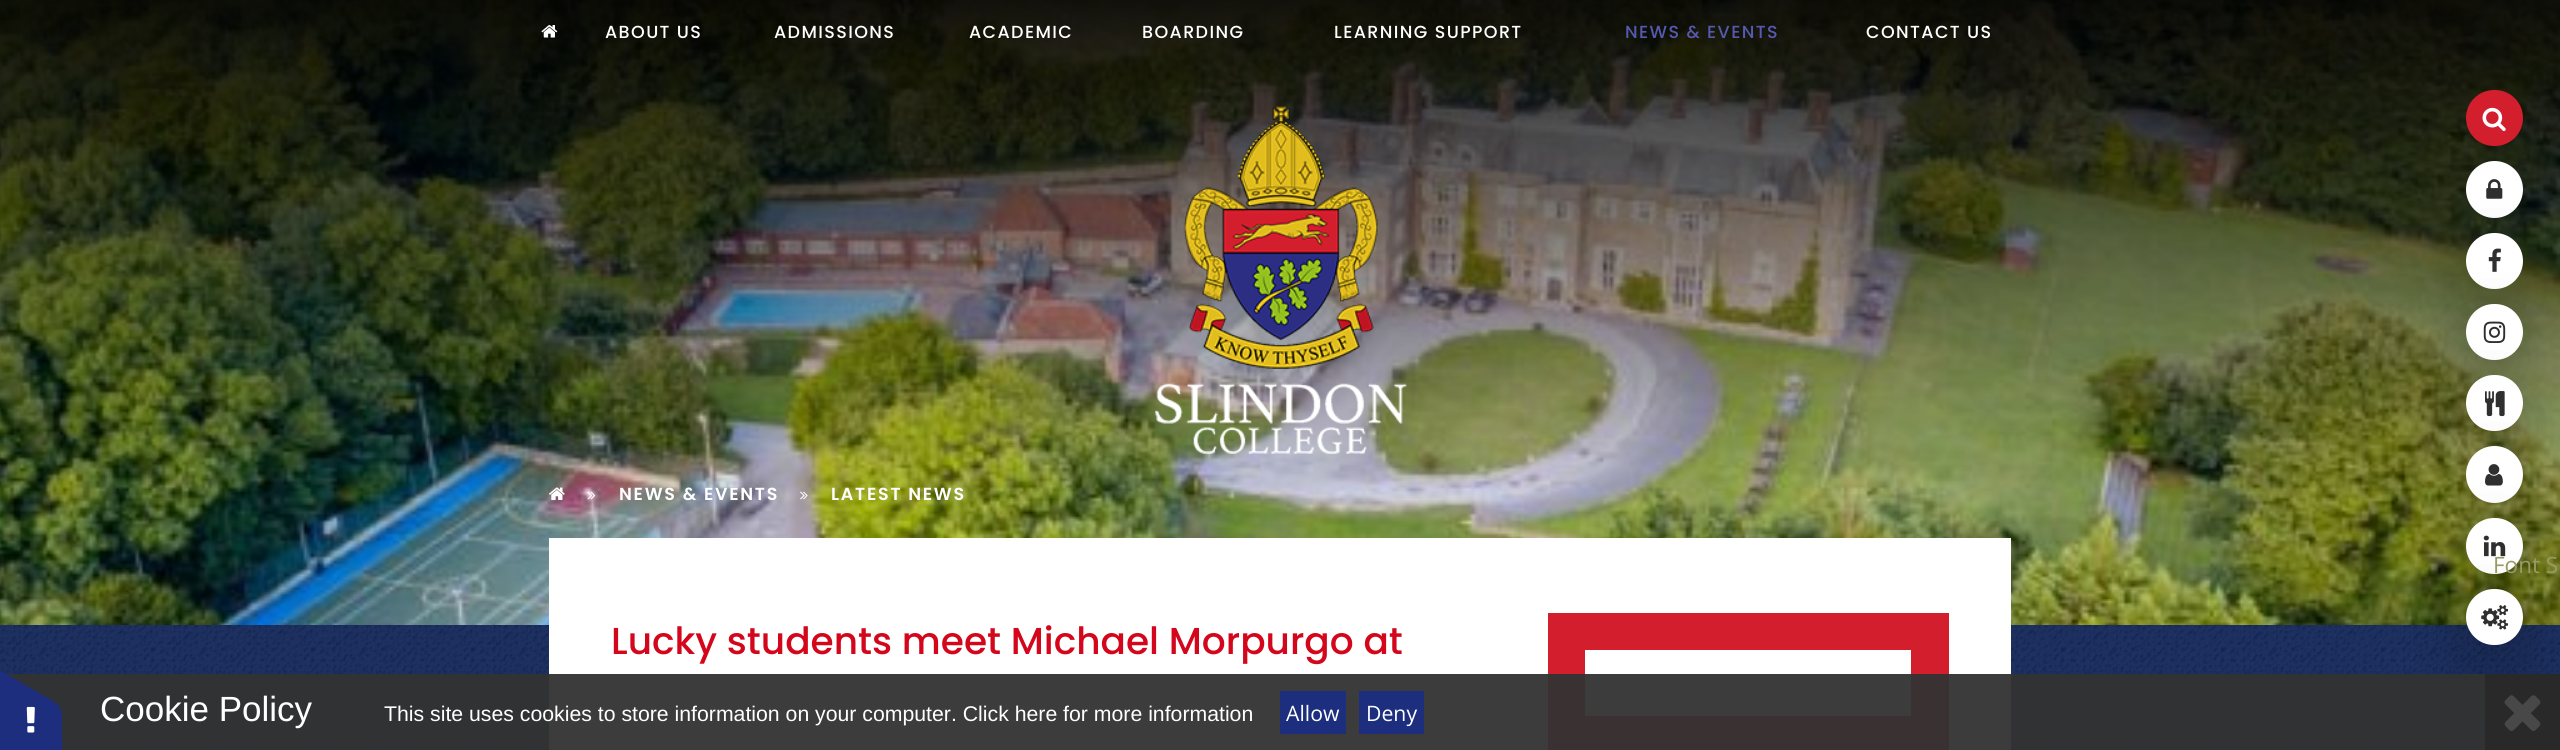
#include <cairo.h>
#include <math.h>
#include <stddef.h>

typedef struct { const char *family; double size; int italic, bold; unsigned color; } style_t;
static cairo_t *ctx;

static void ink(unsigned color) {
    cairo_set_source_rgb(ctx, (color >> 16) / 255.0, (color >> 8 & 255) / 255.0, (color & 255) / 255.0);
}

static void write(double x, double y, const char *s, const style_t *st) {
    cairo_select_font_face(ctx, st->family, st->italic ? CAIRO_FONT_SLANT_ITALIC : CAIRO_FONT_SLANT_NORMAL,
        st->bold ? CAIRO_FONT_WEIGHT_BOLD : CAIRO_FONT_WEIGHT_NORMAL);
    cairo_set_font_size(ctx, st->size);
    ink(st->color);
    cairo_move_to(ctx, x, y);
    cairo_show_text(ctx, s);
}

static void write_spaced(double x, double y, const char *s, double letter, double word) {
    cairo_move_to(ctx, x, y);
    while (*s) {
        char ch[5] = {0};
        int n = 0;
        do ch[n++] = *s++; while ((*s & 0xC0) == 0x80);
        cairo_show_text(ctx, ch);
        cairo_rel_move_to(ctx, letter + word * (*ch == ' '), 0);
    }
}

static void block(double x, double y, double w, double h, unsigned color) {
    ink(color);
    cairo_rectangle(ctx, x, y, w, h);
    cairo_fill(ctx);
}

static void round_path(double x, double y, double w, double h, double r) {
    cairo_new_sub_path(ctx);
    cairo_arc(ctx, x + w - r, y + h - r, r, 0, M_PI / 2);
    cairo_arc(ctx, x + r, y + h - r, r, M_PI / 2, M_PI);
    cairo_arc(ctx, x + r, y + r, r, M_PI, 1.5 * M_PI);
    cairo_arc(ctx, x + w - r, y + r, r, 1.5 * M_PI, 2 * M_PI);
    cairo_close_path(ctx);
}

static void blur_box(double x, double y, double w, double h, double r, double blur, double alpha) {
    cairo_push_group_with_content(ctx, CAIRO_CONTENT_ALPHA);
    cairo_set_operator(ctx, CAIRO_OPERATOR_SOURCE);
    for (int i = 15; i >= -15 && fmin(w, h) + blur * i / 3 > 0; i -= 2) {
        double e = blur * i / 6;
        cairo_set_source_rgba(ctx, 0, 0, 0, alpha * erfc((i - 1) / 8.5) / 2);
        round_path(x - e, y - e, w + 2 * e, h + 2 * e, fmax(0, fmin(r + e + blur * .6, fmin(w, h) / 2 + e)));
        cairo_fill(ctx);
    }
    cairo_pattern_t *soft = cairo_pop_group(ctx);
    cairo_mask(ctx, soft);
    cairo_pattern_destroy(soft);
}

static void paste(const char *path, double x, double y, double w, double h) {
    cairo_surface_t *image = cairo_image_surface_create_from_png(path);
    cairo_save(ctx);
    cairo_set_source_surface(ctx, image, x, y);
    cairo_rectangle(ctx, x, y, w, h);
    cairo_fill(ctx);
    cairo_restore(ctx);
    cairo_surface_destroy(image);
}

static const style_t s1 = {"Open Sans", 22.5, 0, 0, 0x979c65};
static const style_t s2 = {"Poppins Medium", 37.5, 0, 0, 0xd4061b};
static const style_t s3 = {"Liberation Sans", 35, 0, 0, 0xffffff};
static const style_t s4 = {"Liberation Sans", 21.25, 0, 0, 0xffffff};
static const style_t s5 = {"Open Sans", 21.25, 0, 0, 0xffffff};

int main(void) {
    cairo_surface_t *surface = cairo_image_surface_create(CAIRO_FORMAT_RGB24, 2560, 750);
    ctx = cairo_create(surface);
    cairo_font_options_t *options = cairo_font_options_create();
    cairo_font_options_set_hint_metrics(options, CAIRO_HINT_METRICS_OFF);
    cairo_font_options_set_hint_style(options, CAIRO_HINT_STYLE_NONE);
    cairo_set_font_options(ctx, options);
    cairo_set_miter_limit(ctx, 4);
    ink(0xffffff);
    cairo_paint(ctx);
    paste("pic1.png", 0, 0, 2560, 625);
    paste("pic2.png", 541, 25, 17, 13);
    cairo_select_font_face(ctx, "Poppins Medium", CAIRO_FONT_SLANT_NORMAL, CAIRO_FONT_WEIGHT_NORMAL);
    cairo_set_font_size(ctx, 17.5);
    ink(0xffffff);
    write_spaced(605, 38, "ABOUT US", 1.4, 0);
    write_spaced(774, 38, "ADMISSIONS", 1.4, 0);
    write_spaced(969, 38, "ACADEMIC", 1.4, 0);
    write_spaced(1142, 38, "BOARDING", 1.4, 0);
    write_spaced(1334, 38, "LEARNING SUPPORT", 1.4, 0);
    ink(0x5659b0);
    write_spaced(1625, 38, "NEWS & EVENTS", 1.4, 0);
    ink(0xffffff);
    write_spaced(1866, 38, "CONTACT US", 1.4, 0);
    ink(0xd31e2d);
    round_path(2466, 90, 57, 56, 28);
    cairo_fill(ctx);
    paste("pic3.png", 2482, 107, 24, 24);
    ink(0xffffff);
    cairo_arc(ctx, 2494.5, 189.5, 28.5, 0, 2 * M_PI);
    cairo_fill(ctx);
    ink(0x000000);
    blur_box(2454, 245, 81, 81, 40.5, 25, 0.15);
    paste("pic4.png", 2486, 179, 17, 20);
    ink(0xffffff);
    round_path(2466, 233, 57, 56, 28);
    cairo_fill(ctx);
    ink(0x000000);
    blur_box(2454, 316, 81, 82, 40.5, 25, 0.15);
    paste("pic5.png", 2488, 248, 13, 24);
    ink(0xffffff);
    round_path(2466, 304, 57, 56, 28);
    cairo_fill(ctx);
    ink(0x000000);
    blur_box(2454, 388, 81, 81, 40.5, 25, 0.15);
    paste("pic6.png", 2483, 321, 23, 22);
    ink(0xffffff);
    round_path(2466, 375, 57, 56, 28);
    cairo_fill(ctx);
    ink(0x000000);
    blur_box(2454, 459, 81, 81, 40.5, 25, 0.15);
    paste("pic7.png", 2485, 391, 20, 26);
    ink(0xffffff);
    cairo_arc(ctx, 2494.5, 474.5, 28.5, 0, 2 * M_PI);
    cairo_fill(ctx);
    paste("pic15.png", 0, 625, 2560, 125);
    ink(0x000000);
    blur_box(2454, 530, 81, 81, 40.5, 25, 0.15);
    paste("pic8.png", 2485, 464, 18, 22);
    ink(0xffffff);
    round_path(2466, 518, 57, 56, 28);
    cairo_fill(ctx);
    paste("pic9.png", 2483, 535, 23, 22);
    ink(0x000000);
    blur_box(2454, 601, 81, 82, 40.5, 25, 0.15);
    ink(0xffffff);
    round_path(2466, 589, 57, 56, 28);
    cairo_fill(ctx);
    paste("pic10.png", 2481, 605, 28, 25);
    write(2493, 573, "Font S", &s1);
    paste("pic11.png", 1154, 106, 253, 348);
    block(549, 538, 1462, 212, 0xffffff);
    paste("pic12.png", 549, 487, 16, 13);
    paste("pic13.png", 587, 491, 9, 9);
    cairo_select_font_face(ctx, "Poppins SemiBold", CAIRO_FONT_SLANT_NORMAL, CAIRO_FONT_WEIGHT_NORMAL);
    cairo_set_font_size(ctx, 17.5);
    write_spaced(619, 500, "NEWS & EVENTS", 1.75, 0);
    paste("pic14.png", 800, 491, 8, 9);
    write_spaced(831, 500, "LATEST NEWS", 1.75, 0);
    write(611, 654, "Lucky students meet Michael Morpurgo at", &s2);
    block(1548, 613, 401, 137, 0xd31e2d);
    block(1585, 650, 326, 66, 0xffffff);
    cairo_set_source_rgba(ctx, 0.2, 0.2, 0.2, 0.95);
    cairo_rectangle(ctx, 6, 674, 2479, 76);
    cairo_fill(ctx);
    ink(0x1c2e7d);
    cairo_new_path(ctx);
    cairo_move_to(ctx, 62, 716);
    cairo_line_to(ctx, 62, 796);
    cairo_curve_to(ctx, 62, 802, 60, 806, 57, 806);
    cairo_line_to(ctx, -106, 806);
    cairo_curve_to(ctx, -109, 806, -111, 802, -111, 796);
    cairo_line_to(ctx, -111, 716);
    cairo_curve_to(ctx, -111, 711, -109, 706, -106, 706);
    cairo_line_to(ctx, 57, 706);
    cairo_curve_to(ctx, 60, 706, 62, 711, 62, 716);
    cairo_close_path(ctx);
    cairo_fill(ctx);
    cairo_new_path(ctx);
    cairo_move_to(ctx, -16, 661);
    cairo_line_to(ctx, 53, 701);
    cairo_curve_to(ctx, 58, 704, 61, 708, 60, 710);
    cairo_line_to(ctx, -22, 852);
    cairo_curve_to(ctx, -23, 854, -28, 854, -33, 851);
    cairo_line_to(ctx, -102, 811);
    cairo_curve_to(ctx, -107, 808, -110, 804, -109, 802);
    cairo_line_to(ctx, -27, 660);
    cairo_curve_to(ctx, -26, 658, -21, 658, -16, 661);
    cairo_close_path(ctx);
    cairo_fill(ctx);
    paste("pic16.png", 26, 706, 9, 27);
    write(100, 721, "Cookie Policy", &s3);
    write(384, 721, "This site uses cookies to store information on your computer. Click here for more information", &s4);
    block(1280, 691, 66, 43, 0x1c2e7d);
    write(1286, 721, "Allow", &s5);
    block(1359, 691, 65, 43, 0x1c2e7d);
    write(1366, 721, "Deny", &s5);
    block(2485, 674, 75, 76, 0x292929);
    paste("pic17.png", 2504, 695, 37, 36);
    cairo_surface_write_to_png(surface, "screenshot.png");
    cairo_font_options_destroy(options);
    cairo_destroy(ctx);
    cairo_surface_destroy(surface);
    return 0;
}
